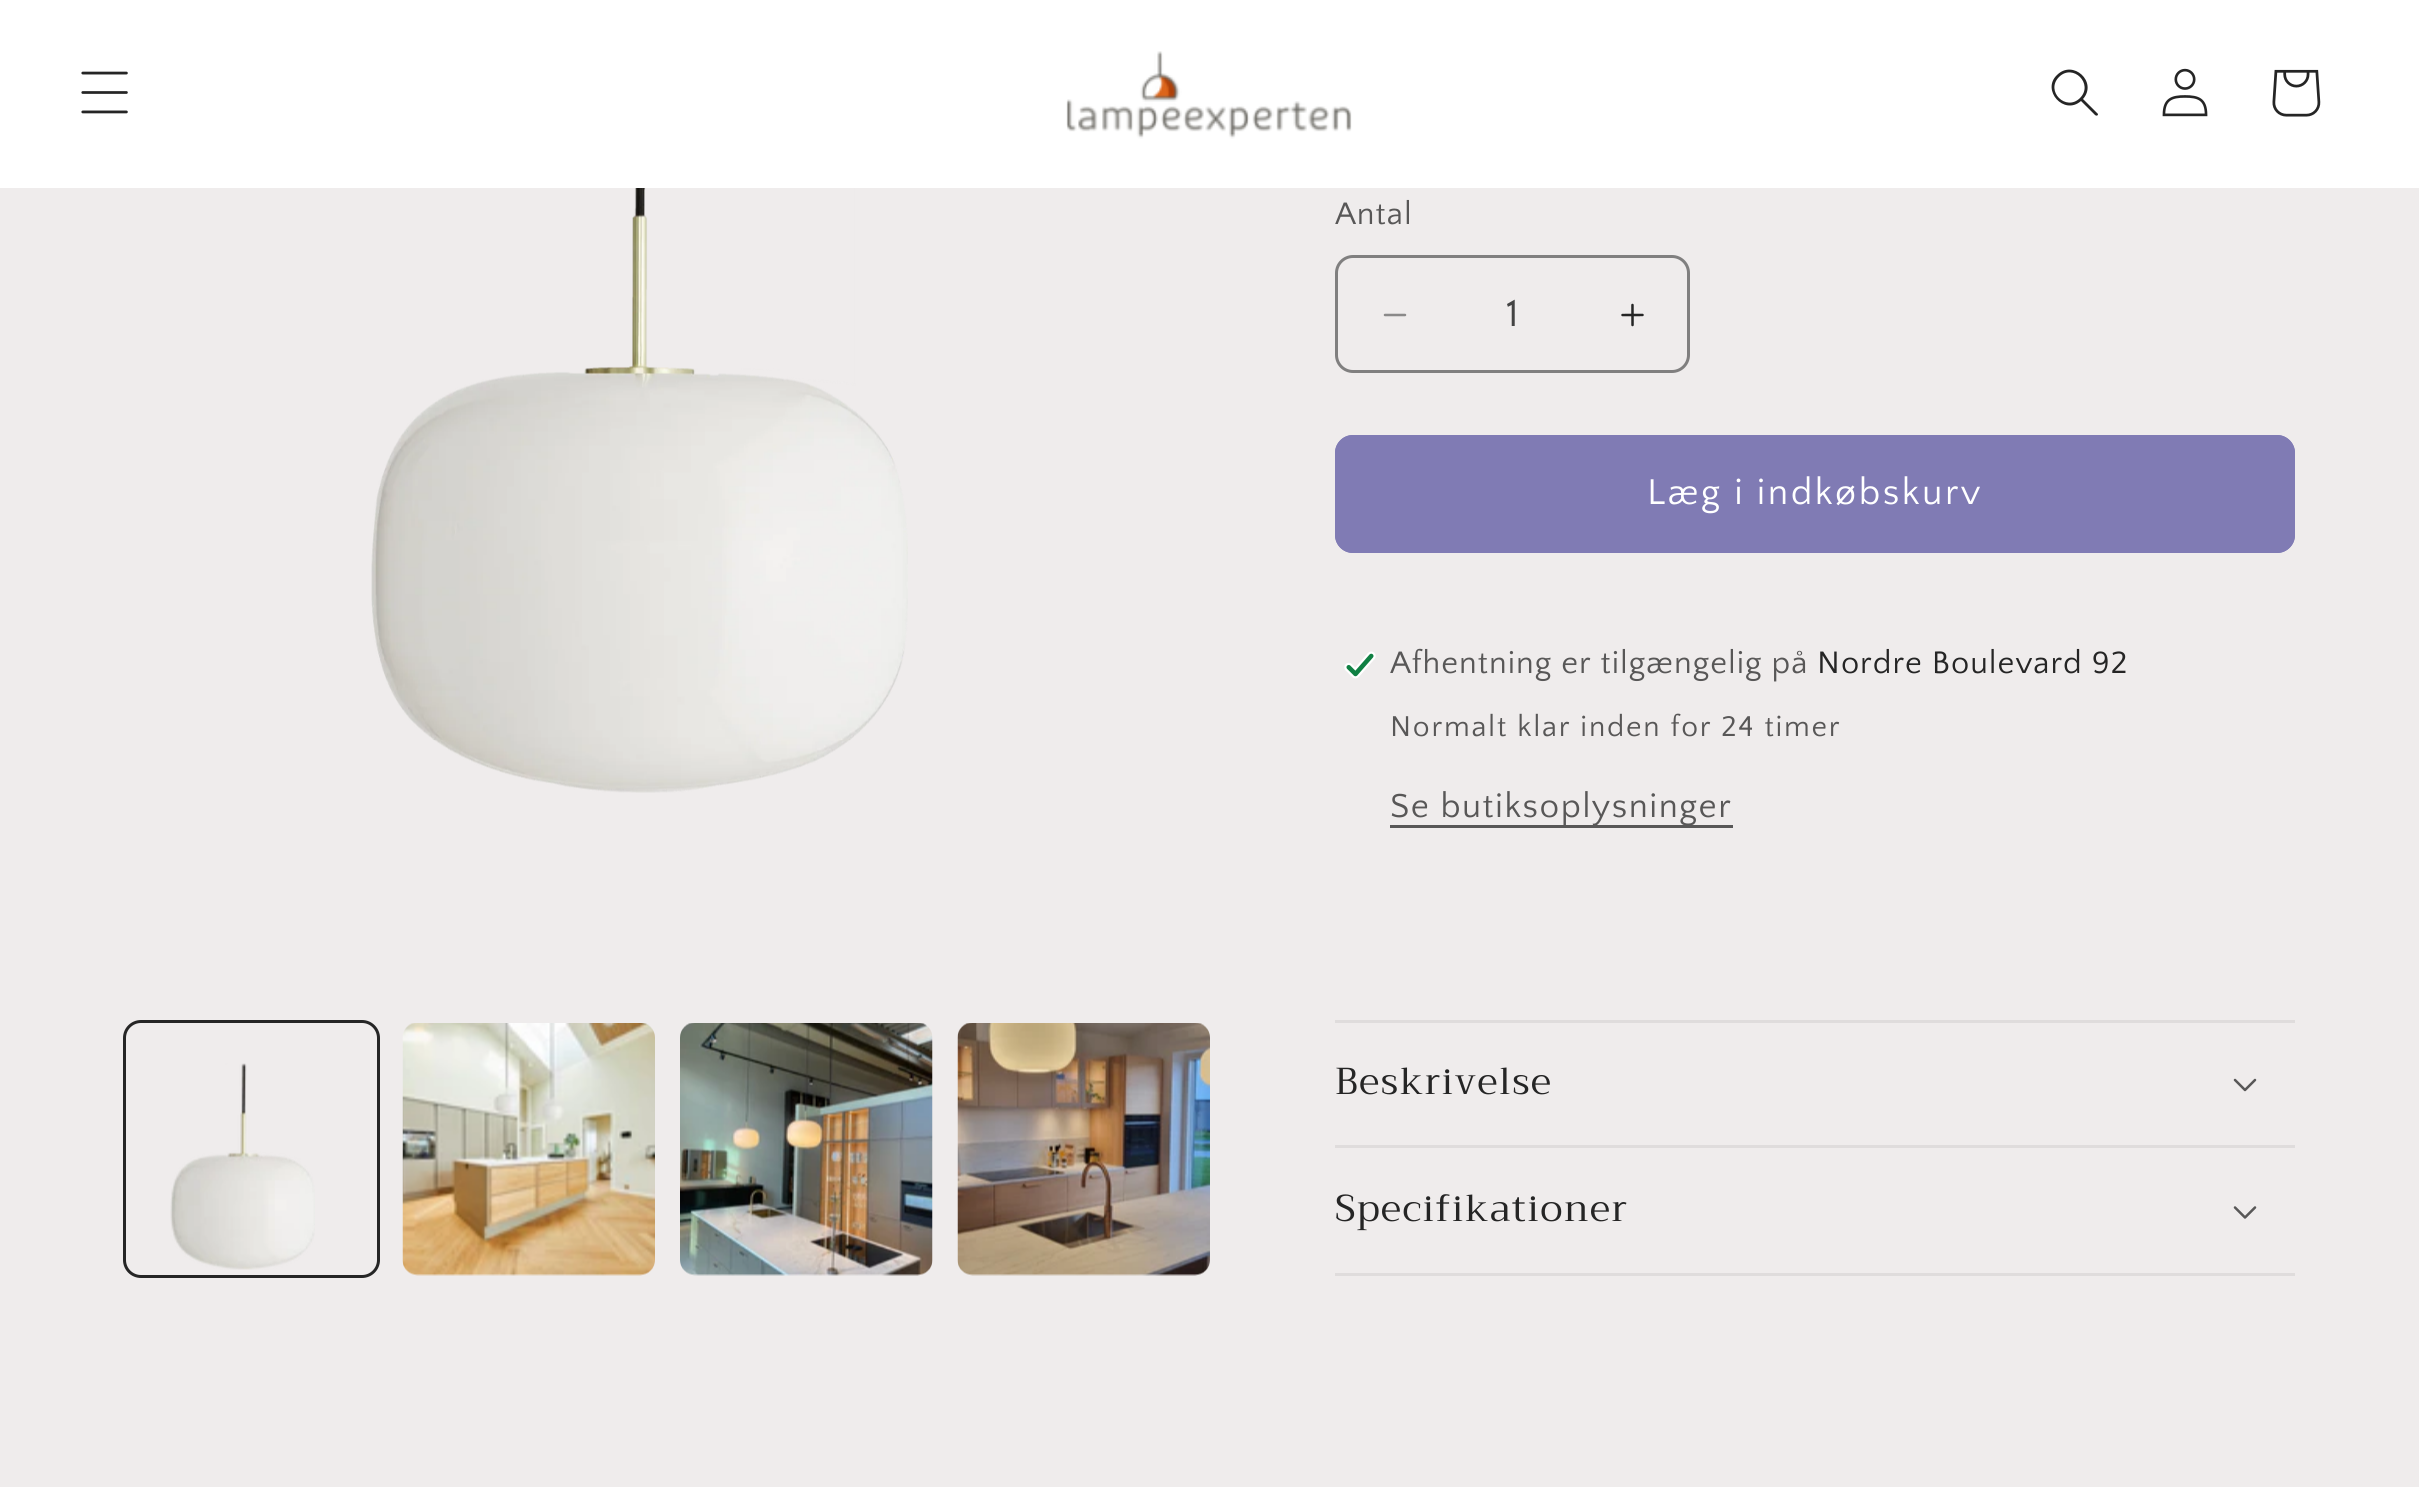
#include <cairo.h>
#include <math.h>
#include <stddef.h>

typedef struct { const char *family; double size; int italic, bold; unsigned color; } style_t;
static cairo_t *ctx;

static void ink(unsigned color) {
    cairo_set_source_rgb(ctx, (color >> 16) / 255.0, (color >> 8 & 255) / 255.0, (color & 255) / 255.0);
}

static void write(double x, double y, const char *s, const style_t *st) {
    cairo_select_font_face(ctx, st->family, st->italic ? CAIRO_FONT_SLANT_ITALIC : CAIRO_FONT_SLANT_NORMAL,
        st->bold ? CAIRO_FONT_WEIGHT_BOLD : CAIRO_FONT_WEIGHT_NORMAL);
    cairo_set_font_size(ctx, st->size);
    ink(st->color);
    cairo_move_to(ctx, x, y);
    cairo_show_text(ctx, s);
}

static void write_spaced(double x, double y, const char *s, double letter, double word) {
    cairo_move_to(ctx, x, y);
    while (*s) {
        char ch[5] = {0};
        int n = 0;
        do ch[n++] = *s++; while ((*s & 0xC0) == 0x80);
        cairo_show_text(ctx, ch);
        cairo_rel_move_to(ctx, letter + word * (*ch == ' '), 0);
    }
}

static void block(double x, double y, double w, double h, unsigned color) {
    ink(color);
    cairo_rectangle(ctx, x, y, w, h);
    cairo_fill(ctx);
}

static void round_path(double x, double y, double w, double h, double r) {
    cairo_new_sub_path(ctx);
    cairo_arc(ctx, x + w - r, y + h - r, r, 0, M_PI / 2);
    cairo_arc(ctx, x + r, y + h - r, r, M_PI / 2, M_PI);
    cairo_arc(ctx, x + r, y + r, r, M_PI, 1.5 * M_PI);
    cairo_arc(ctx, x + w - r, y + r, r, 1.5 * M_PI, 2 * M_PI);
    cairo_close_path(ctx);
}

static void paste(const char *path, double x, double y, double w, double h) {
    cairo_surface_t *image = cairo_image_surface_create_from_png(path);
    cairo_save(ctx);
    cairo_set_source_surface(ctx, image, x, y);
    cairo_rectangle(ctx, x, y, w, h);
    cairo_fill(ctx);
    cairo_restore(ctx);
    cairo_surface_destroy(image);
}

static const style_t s1 = {"Quattrocento Sans", 40, 0, 0, 0x434343};

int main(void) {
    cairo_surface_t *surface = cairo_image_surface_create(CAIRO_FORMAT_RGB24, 2419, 1487);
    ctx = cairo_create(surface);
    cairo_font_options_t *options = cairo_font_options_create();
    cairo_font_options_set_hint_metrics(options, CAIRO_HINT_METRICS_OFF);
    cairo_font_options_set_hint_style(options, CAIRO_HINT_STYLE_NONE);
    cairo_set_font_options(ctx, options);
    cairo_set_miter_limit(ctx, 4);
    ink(0xefecec);
    cairo_paint(ctx);
    block(0, 0, 2419, 188, 0xffffff);
    paste("pic1.png", 81, 71, 47, 43);
    paste("pic2.png", 1066, 51, 286, 88);
    ink(0x252525);
    cairo_set_fill_rule(ctx, CAIRO_FILL_RULE_EVEN_ODD);
    cairo_new_path(ctx);
    cairo_move_to(ctx, 2080, 98);
    cairo_curve_to(ctx, 2066, 112, 2045, 91, 2059, 77);
    cairo_curve_to(ctx, 2073, 63, 2094, 84, 2080, 98);
    cairo_move_to(ctx, 2081, 101);
    cairo_curve_to(ctx, 2064, 116, 2041, 90, 2057, 75);
    cairo_curve_to(ctx, 2073, 59, 2098, 82, 2083, 99);
    cairo_line_to(ctx, 2098, 114);
    cairo_curve_to(ctx, 2098, 116, 2096, 116, 2095, 115);
    cairo_close_path(ctx);
    cairo_fill(ctx);
    paste("pic3.png", 2162, 68, 46, 49);
    paste("pic4.png", 2272, 69, 49, 48);
    paste("pic5.png", 371, 188, 537, 605);
    round_path(124.5, 1021.5, 254, 255, 16.5);
    cairo_set_line_width(ctx, 3);
    cairo_stroke(ctx);
    paste("pic6.png", 170, 1063, 145, 207);
    paste("pic7.png", 402, 1023, 253, 253);
    paste("pic8.png", 680, 1023, 253, 253);
    paste("pic9.png", 957, 1023, 253, 253);
    cairo_select_font_face(ctx, "Quattrocento Sans", CAIRO_FONT_SLANT_NORMAL, CAIRO_FONT_WEIGHT_NORMAL);
    cairo_set_font_size(ctx, 32.5);
    ink(0x585757);
    write_spaced(1335, 224, "Antal", 1, 0);
    paste("pic10.png", 1383, 313, 24, 4);
    paste("pic11.png", 1621, 303, 23, 24);
    round_path(1336.5, 256.5, 352, 115, 16.5);
    ink(0x807f7f);
    cairo_stroke(ctx);
    write(1506, 326, "1", &s1);
    ink(0x807bb4);
    round_path(1335, 435, 960, 118, 18);
    cairo_fill(ctx);
    round_path(1336.5, 436.5, 957, 115, 16.5);
    cairo_stroke(ctx);
    cairo_set_font_size(ctx, 37.5);
    ink(0xffffff);
    write_spaced(1647, 504, "Læg i indkøbskurv", 2.5, 0);
    paste("pic12.png", 1344, 651, 32, 28);
    cairo_set_font_size(ctx, 32.5);
    ink(0x585757);
    write_spaced(1390, 673, "Afhentning er tilgængelig på", 1, 0);
    ink(0x252525);
    write_spaced(1817, 673, "Nordre Boulevard 92", 1, 0);
    cairo_set_font_size(ctx, 30);
    ink(0x585757);
    write_spaced(1390, 736, "Normalt klar inden for 24 timer", 1.75, 0);
    block(1390, 825, 343, 3, 0x585757);
    cairo_set_font_size(ctx, 35);
    write_spaced(1390, 817, "Se butiksoplysninger", 1.5, 0);
    block(1335, 1020, 960, 3, 0xdfdcdc);
    block(1335, 1145, 960, 3, 0xdfdcdc);
    cairo_select_font_face(ctx, "Trirong", CAIRO_FONT_SLANT_NORMAL, CAIRO_FONT_WEIGHT_NORMAL);
    cairo_set_font_size(ctx, 37.5);
    ink(0x252525);
    write_spaced(1335, 1094, "Beskrivelse", 1.5, 0);
    paste("pic13.png", 2233, 1078, 24, 14);
    block(1335, 1273, 960, 3, 0xdfdcdc);
    ink(0x252525);
    write_spaced(1335, 1221, "Specifikationer", 1.5, 0);
    paste("pic14.png", 2233, 1206, 24, 13);
    cairo_surface_write_to_png(surface, "screenshot.png");
    cairo_font_options_destroy(options);
    cairo_destroy(ctx);
    cairo_surface_destroy(surface);
    return 0;
}
